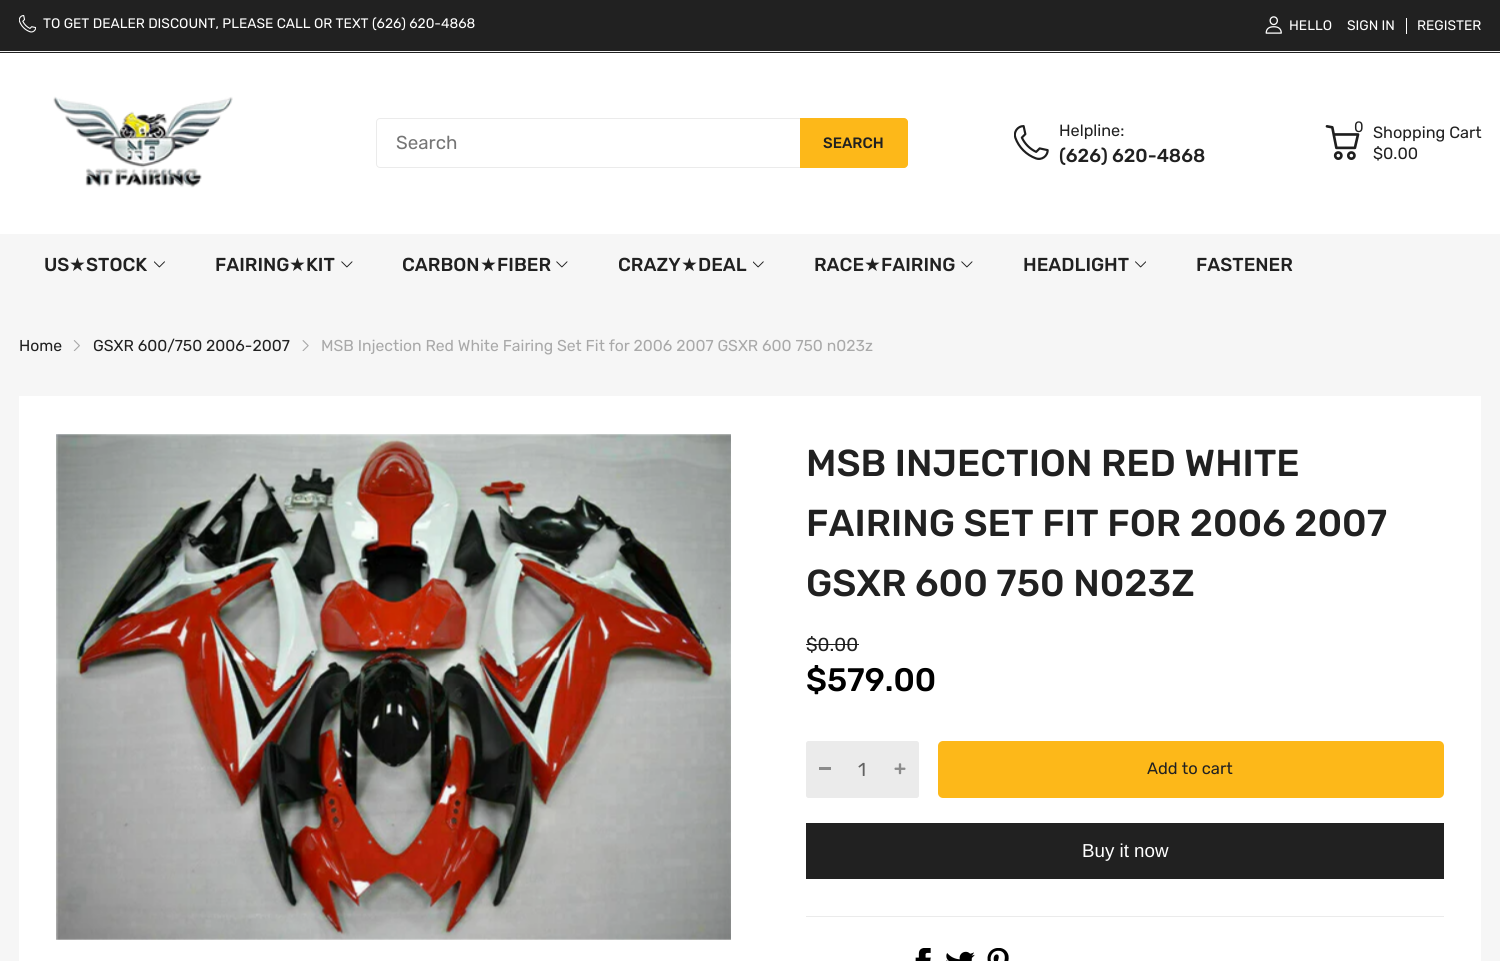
#include <cairo.h>
#include <math.h>
#include <stddef.h>

typedef struct { const char *family; double size; int italic, bold; unsigned color; } style_t;
static cairo_t *ctx;

static void ink(unsigned color) {
    cairo_set_source_rgb(ctx, (color >> 16) / 255.0, (color >> 8 & 255) / 255.0, (color & 255) / 255.0);
}

static void write(double x, double y, const char *s, const style_t *st) {
    cairo_select_font_face(ctx, st->family, st->italic ? CAIRO_FONT_SLANT_ITALIC : CAIRO_FONT_SLANT_NORMAL,
        st->bold ? CAIRO_FONT_WEIGHT_BOLD : CAIRO_FONT_WEIGHT_NORMAL);
    cairo_set_font_size(ctx, st->size);
    ink(st->color);
    cairo_move_to(ctx, x, y);
    cairo_show_text(ctx, s);
}

static void block(double x, double y, double w, double h, unsigned color) {
    ink(color);
    cairo_rectangle(ctx, x, y, w, h);
    cairo_fill(ctx);
}

static void round_path(double x, double y, double w, double h, double r) {
    cairo_new_sub_path(ctx);
    cairo_arc(ctx, x + w - r, y + h - r, r, 0, M_PI / 2);
    cairo_arc(ctx, x + r, y + h - r, r, M_PI / 2, M_PI);
    cairo_arc(ctx, x + r, y + r, r, M_PI, 1.5 * M_PI);
    cairo_arc(ctx, x + w - r, y + r, r, 1.5 * M_PI, 2 * M_PI);
    cairo_close_path(ctx);
}

static void paste(const char *path, double x, double y, double w, double h) {
    cairo_surface_t *image = cairo_image_surface_create_from_png(path);
    cairo_save(ctx);
    cairo_set_source_surface(ctx, image, x, y);
    cairo_rectangle(ctx, x, y, w, h);
    cairo_fill(ctx);
    cairo_restore(ctx);
    cairo_surface_destroy(image);
}

static const style_t s1 = {"Rubik", 13.75, 0, 0, 0xffffff};
static const style_t s2 = {"Rubik", 18.75, 0, 0, 0x757575};
static const style_t s3 = {"Rubik Medium", 15, 0, 0, 0x212121};
static const style_t s4 = {"Rubik", 16.25, 0, 0, 0x212121};
static const style_t s5 = {"Rubik Medium", 18.75, 0, 0, 0x212121};
static const style_t s6 = {"Rubik", 15, 0, 0, 0x212121};
static const style_t s7 = {"DejaVu Sans", 18.75, 0, 0, 0x212121};
static const style_t s8 = {"Rubik", 15.75, 0, 0, 0x212121};
static const style_t s9 = {"Rubik", 15.75, 0, 0, 0xa9a9a9};
static const style_t s10 = {"Rubik Medium", 37.5, 0, 0, 0x212121};
static const style_t s11 = {"Rubik", 18.75, 0, 0, 0x212121};
static const style_t s12 = {"Rubik Medium", 32.5, 0, 0, 0x000000};
static const style_t s13 = {"Rubik", 18.75, 0, 0, 0x626262};
static const style_t s14 = {"Rubik", 16.5, 0, 0, 0x212121};
static const style_t s15 = {"Liberation Sans", 18.75, 0, 0, 0xffffff};

int main(void) {
    cairo_surface_t *surface = cairo_image_surface_create(CAIRO_FORMAT_RGB24, 1500, 961);
    ctx = cairo_create(surface);
    cairo_font_options_t *options = cairo_font_options_create();
    cairo_font_options_set_hint_metrics(options, CAIRO_HINT_METRICS_OFF);
    cairo_font_options_set_hint_style(options, CAIRO_HINT_STYLE_NONE);
    cairo_set_font_options(ctx, options);
    cairo_set_miter_limit(ctx, 4);
    ink(0xf6f6f6);
    cairo_paint(ctx);
    block(0, 0, 1500, 53, 0x212121);
    block(0, 51, 1500, 1, 0xf5f5f5);
    paste("pic1.png", 19, 15, 17, 18);
    write(43, 28, "TO GET DEALER DISCOUNT, PLEASE CALL OR TEXT (626) 620-4868", &s1);
    paste("pic2.png", 1265, 16, 17, 18);
    write(1289, 30, "HELLO", &s1);
    write(1347, 30, "SIGN IN", &s1);
    write(1417, 30, "REGISTER", &s1);
    block(1406, 18, 1, 16, 0xffffff);
    block(0, 53, 1500, 181, 0xffffff);
    paste("pic3.png", 53, 96, 180, 92);
    round_path(376.5, 118.5, 531, 49, 3.5);
    ink(0xebebeb);
    cairo_set_line_width(ctx, 1);
    cairo_stroke(ctx);
    write(396, 149, "Search", &s2);
    ink(0xfdb819);
    cairo_new_path(ctx);
    cairo_move_to(ctx, 800, 118);
    cairo_line_to(ctx, 904, 118);
    cairo_curve_to(ctx, 906, 118, 908, 120, 908, 122);
    cairo_line_to(ctx, 908, 164);
    cairo_curve_to(ctx, 908, 166, 906, 168, 904, 168);
    cairo_line_to(ctx, 800, 168);
    cairo_close_path(ctx);
    cairo_fill(ctx);
    write(823, 148, "SEARCH", &s3);
    paste("pic4.png", 1014, 125, 35, 35);
    write(1059, 136, "Helpline:", &s4);
    write(1059, 162, "(626) 620-4868", &s5);
    paste("pic5.png", 1325, 125, 35, 35);
    write(1354, 132, "0", &s6);
    write(1373, 138, "Shopping Cart", &s4);
    write(1373, 159, "$0.00", &s4);
    write(44, 271, "US", &s5);
    write(69, 271, "★", &s7);
    write(86, 271, "STOCK", &s5);
    paste("pic6.png", 154, 261, 11, 7);
    write(215, 271, "FAIRING", &s5);
    write(289, 271, "★", &s7);
    write(306, 271, "KIT", &s5);
    paste("pic7.png", 341, 261, 12, 7);
    write(402, 271, "CARBON", &s5);
    write(480, 271, "★", &s7);
    write(497, 271, "FIBER", &s5);
    paste("pic7.png", 556, 261, 12, 7);
    write(618, 271, "CRAZY", &s5);
    write(681, 271, "★", &s7);
    write(698, 271, "DEAL", &s5);
    paste("pic8.png", 753, 261, 11, 7);
    write(814, 271, "RACE", &s5);
    write(864, 271, "★", &s7);
    write(881, 271, "FAIRING", &s5);
    paste("pic7.png", 961, 261, 12, 7);
    write(1023, 271, "HEADLIGHT", &s5);
    paste("pic9.png", 1135, 261, 11, 7);
    write(1196, 271, "FASTENER", &s5);
    write(19, 351, "Home", &s8);
    paste("pic10.png", 73, 340, 7, 11);
    write(93, 351, "GSXR 600/750 2006-2007", &s8);
    paste("pic11.png", 302, 340, 7, 11);
    write(321, 351, "MSB Injection Red White Fairing Set Fit for 2006 2007 GSXR 600 750 n023z", &s9);
    block(19, 396, 1462, 565, 0xffffff);
    paste("pic12.png", 56, 434, 675, 506);
    write(806, 476, "MSB INJECTION RED WHITE", &s10);
    write(806, 536, "FAIRING SET FIT FOR 2006 2007", &s10);
    write(806, 596, "GSXR 600 750 N023Z", &s10);
    write(806, 651, "$0.00", &s11);
    block(806, 644, 53, 1, 0x1e1e1e);
    write(806, 691, "$579.00", &s12);
    ink(0xebebeb);
    round_path(806, 741, 113, 57, 2.5);
    cairo_fill(ctx);
    block(819, 767, 12, 3, 0x8b8b8b);
    write(858, 776, "1", &s13);
    paste("pic13.png", 894, 763, 12, 12);
    ink(0xfdb819);
    round_path(938, 741, 506, 57, 5);
    cairo_fill(ctx);
    write(1147, 774, "Add to cart", &s14);
    block(806, 823, 638, 56, 0x212121);
    write(1082, 857, "Buy it now", &s15);
    block(806, 916, 638, 1, 0xebebeb);
    paste("pic14.png", 915, 948, 16, 13);
    paste("pic15.png", 946, 951, 29, 10);
    paste("pic16.png", 987, 948, 22, 13);
    cairo_surface_write_to_png(surface, "screenshot.png");
    cairo_font_options_destroy(options);
    cairo_destroy(ctx);
    cairo_surface_destroy(surface);
    return 0;
}
